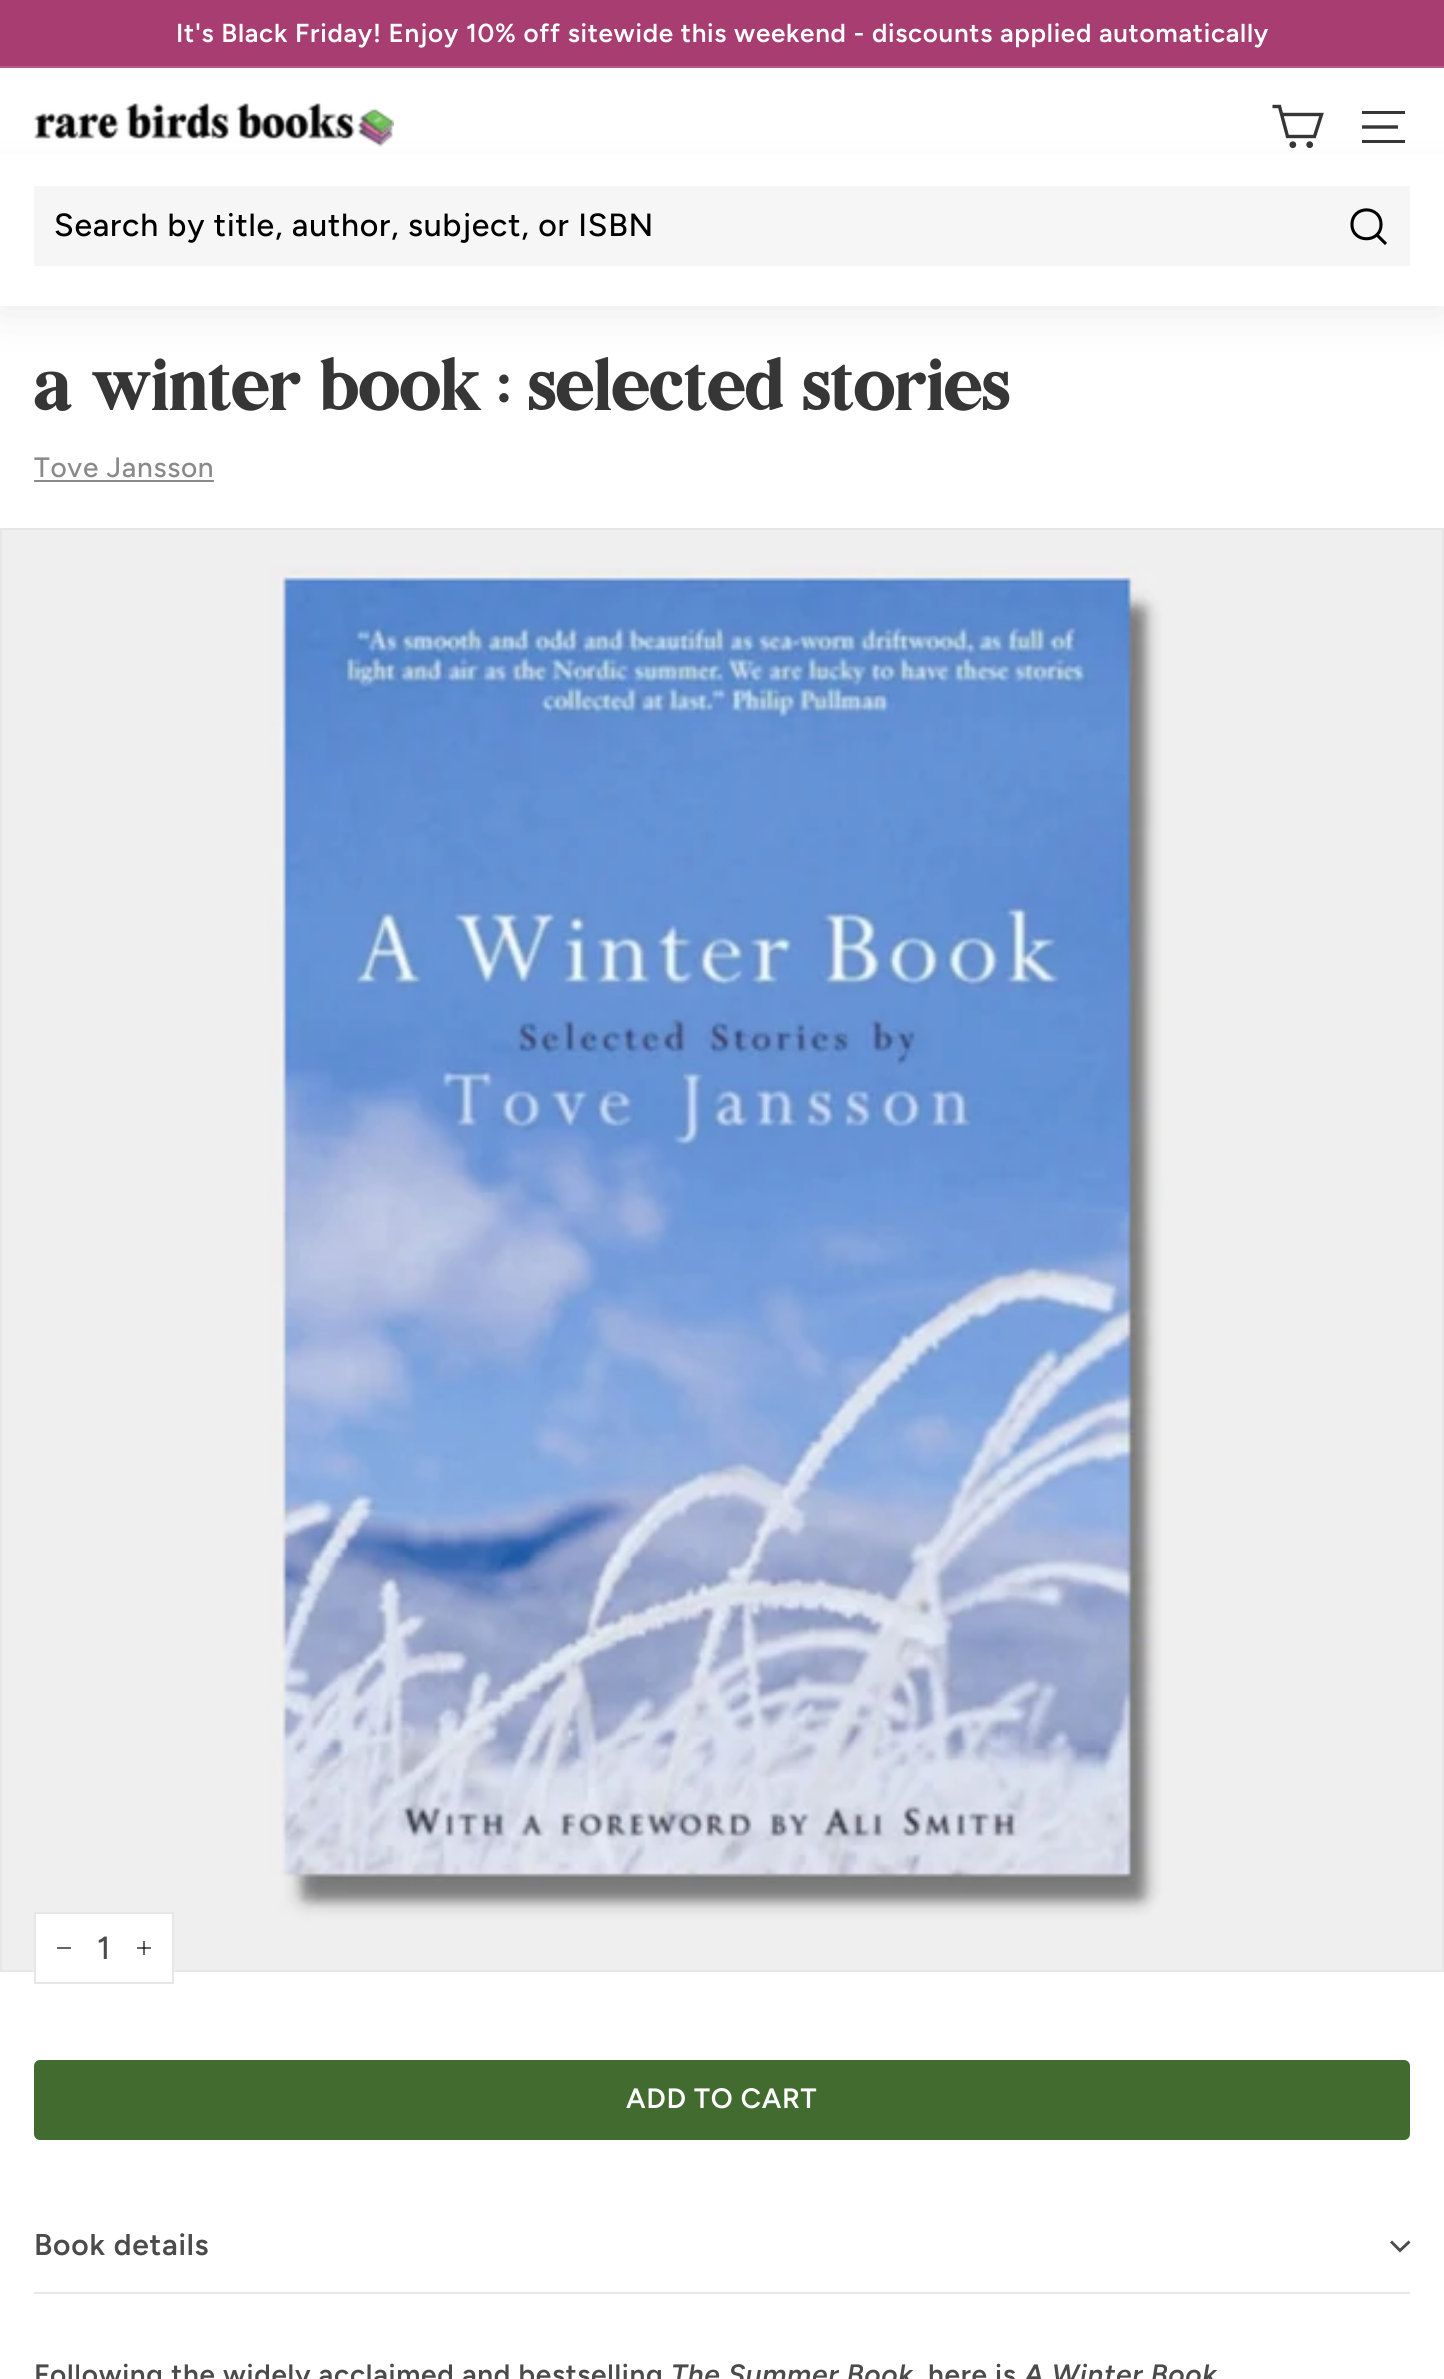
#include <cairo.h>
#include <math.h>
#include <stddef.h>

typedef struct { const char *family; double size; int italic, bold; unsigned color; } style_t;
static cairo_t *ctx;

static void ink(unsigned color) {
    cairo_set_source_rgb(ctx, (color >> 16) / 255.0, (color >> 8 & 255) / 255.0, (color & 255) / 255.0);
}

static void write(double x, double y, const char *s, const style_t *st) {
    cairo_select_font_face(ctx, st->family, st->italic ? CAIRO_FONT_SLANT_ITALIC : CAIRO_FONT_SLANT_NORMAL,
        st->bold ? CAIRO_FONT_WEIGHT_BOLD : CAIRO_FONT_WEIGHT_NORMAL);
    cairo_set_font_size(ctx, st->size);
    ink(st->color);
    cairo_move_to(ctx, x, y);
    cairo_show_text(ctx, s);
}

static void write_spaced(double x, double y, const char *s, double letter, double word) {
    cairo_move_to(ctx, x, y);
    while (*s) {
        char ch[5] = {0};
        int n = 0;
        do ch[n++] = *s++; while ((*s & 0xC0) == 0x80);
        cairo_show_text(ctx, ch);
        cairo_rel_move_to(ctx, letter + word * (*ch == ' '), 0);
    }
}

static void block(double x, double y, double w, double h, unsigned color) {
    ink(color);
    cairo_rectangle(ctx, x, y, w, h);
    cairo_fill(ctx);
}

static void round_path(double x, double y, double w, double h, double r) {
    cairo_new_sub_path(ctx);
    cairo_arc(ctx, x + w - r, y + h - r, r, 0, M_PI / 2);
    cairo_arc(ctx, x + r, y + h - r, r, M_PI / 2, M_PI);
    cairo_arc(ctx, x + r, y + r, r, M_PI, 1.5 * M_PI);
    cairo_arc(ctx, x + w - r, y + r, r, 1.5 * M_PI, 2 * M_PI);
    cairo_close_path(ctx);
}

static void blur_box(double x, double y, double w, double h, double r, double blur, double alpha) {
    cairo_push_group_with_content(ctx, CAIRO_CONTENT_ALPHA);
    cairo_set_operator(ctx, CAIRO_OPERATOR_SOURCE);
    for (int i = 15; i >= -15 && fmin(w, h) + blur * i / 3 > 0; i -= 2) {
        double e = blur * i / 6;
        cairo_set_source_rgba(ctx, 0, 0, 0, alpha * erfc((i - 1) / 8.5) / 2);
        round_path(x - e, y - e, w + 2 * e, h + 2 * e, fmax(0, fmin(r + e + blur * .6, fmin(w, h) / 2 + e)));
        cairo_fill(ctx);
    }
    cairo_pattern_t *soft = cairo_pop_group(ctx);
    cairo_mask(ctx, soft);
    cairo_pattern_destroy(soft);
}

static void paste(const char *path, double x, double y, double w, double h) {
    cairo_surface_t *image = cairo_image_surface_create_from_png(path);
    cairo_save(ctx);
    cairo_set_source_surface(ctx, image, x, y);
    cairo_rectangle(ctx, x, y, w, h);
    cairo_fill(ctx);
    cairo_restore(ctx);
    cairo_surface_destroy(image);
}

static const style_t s1 = {"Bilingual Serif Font", 75.6, 0, 0, 0x363636};

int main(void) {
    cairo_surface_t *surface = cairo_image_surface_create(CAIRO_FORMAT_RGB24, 1444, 2379);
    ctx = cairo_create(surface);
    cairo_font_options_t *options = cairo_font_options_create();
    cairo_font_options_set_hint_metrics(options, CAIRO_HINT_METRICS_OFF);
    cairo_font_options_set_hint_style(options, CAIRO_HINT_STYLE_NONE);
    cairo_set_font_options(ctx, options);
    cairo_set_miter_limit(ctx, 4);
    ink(0xffffff);
    cairo_paint(ctx);
    block(0, 0, 1444, 66, 0xa83d72);
    cairo_select_font_face(ctx, "Figtree SemiBold", CAIRO_FONT_SLANT_NORMAL, CAIRO_FONT_WEIGHT_NORMAL);
    cairo_set_font_size(ctx, 26);
    ink(0xffffff);
    write_spaced(176, 42, "It's Black Friday! Enjoy 10% off sitewide this weekend - discounts applied automatically", 0.7, 0);
    block(0, 66, 1444, 2, 0xb55a87);
    ink(0x000000);
    blur_box(0, 186, 1444, 120, 0, 25, 0.1);
    paste("pic1.png", 34, 102, 360, 45);
    cairo_new_path(ctx);
    cairo_move_to(ctx, 1282, 114.5);
    cairo_line_to(ctx, 1321.5, 114.5);
    cairo_line_to(ctx, 1314.5, 136.5);
    cairo_line_to(ctx, 1287.5, 136.5);
    cairo_line_to(ctx, 1279.5, 106.5);
    cairo_line_to(ctx, 1272.5, 106.5);
    ink(0x363636);
    cairo_set_line_width(ctx, 3.4);
    cairo_stroke(ctx);
    cairo_arc(ctx, 1292.8, 144.7, 1.7, 0, 2 * M_PI);
    cairo_stroke(ctx);
    cairo_arc(ctx, 1309.7, 144.7, 1.7, 0, 2 * M_PI);
    cairo_stroke(ctx);
    block(1362, 111, 43, 3, 0x363636);
    cairo_new_path(ctx);
    cairo_move_to(ctx, 1362, 127);
    cairo_line_to(ctx, 1398, 127);
    cairo_stroke(ctx);
    block(1362, 140, 43, 3, 0x363636);
    block(0, 154, 1444, 152, 0xffffff);
    block(34, 186, 1376, 80, 0xf6f6f6);
    cairo_select_font_face(ctx, "Figtree Medium", CAIRO_FONT_SLANT_NORMAL, CAIRO_FONT_WEIGHT_NORMAL);
    cairo_set_font_size(ctx, 32);
    ink(0x000000);
    write_spaced(54, 236, "Search by title, author, subject, or ISBN", 0.8, 0);
    cairo_new_path(ctx);
    cairo_move_to(ctx, 1381, 224.5);
    cairo_curve_to(ctx, 1381, 243.5, 1352, 243.5, 1352, 224.5);
    cairo_curve_to(ctx, 1352, 205, 1381, 205, 1381, 224.5);
    cairo_close_path(ctx);
    cairo_move_to(ctx, 1386, 244);
    cairo_line_to(ctx, 1377, 235);
    cairo_set_line_width(ctx, 3.1);
    cairo_stroke(ctx);
    write(34, 410, "a winter book : selected stories", &s1);
    cairo_select_font_face(ctx, "Figtree Medium", CAIRO_FONT_SLANT_NORMAL, CAIRO_FONT_WEIGHT_NORMAL);
    cairo_set_font_size(ctx, 28);
    ink(0x8a8a8a);
    write_spaced(34, 477, "Tove Jansson", 0.7, 0);
    block(34, 480, 180, 2, 0x8a8a8a);
    cairo_rectangle(ctx, 1, 529, 1442, 1442);
    ink(0xe7e7e7);
    cairo_set_line_width(ctx, 2);
    cairo_stroke(ctx);
    paste("pic2.png", 2, 530, 1440, 1440);
    block(36, 1914, 136, 58, 0xffffff);
    cairo_rectangle(ctx, 35, 1913, 138, 70);
    ink(0xe7e7e7);
    cairo_stroke(ctx);
    cairo_new_path(ctx);
    cairo_move_to(ctx, 71, 1948);
    cairo_line_to(ctx, 57, 1948);
    ink(0x000000);
    cairo_set_line_width(ctx, 1.2);
    cairo_stroke(ctx);
    cairo_set_font_size(ctx, 32);
    ink(0x4b4b4b);
    write_spaced(97, 1959, "1", 0.8, 0);
    cairo_new_path(ctx);
    cairo_move_to(ctx, 144, 1941);
    cairo_line_to(ctx, 144, 1955);
    cairo_move_to(ctx, 151, 1948);
    cairo_line_to(ctx, 137, 1948);
    ink(0x000000);
    cairo_stroke(ctx);
    ink(0x426b30);
    round_path(34, 2060, 1376, 80, 6);
    cairo_fill(ctx);
    cairo_select_font_face(ctx, "Figtree SemiBold", CAIRO_FONT_SLANT_NORMAL, CAIRO_FONT_WEIGHT_NORMAL);
    cairo_set_font_size(ctx, 28);
    ink(0xffffff);
    write_spaced(626, 2108, "ADD TO CART", 0.7, 0);
    block(34, 2292, 1376, 2, 0xe7e7e7);
    cairo_set_font_size(ctx, 30);
    ink(0x4b4b4b);
    write_spaced(34, 2255, "Book details", 0.75, 0);
    cairo_new_path(ctx);
    cairo_move_to(ctx, 1391, 2241.5);
    cairo_line_to(ctx, 1400, 2250.5);
    cairo_line_to(ctx, 1409.5, 2241.5);
    cairo_set_line_width(ctx, 2.9);
    cairo_stroke(ctx);
    cairo_set_font_size(ctx, 28);
    write_spaced(34, 2384, "Following the widely acclaimed and bestselling", 0.7, 0);
    cairo_select_font_face(ctx, "Figtree SemiBold", CAIRO_FONT_SLANT_ITALIC, CAIRO_FONT_WEIGHT_NORMAL);
    write_spaced(671, 2384, "The Summer Book", 0.7, 0);
    cairo_select_font_face(ctx, "Figtree SemiBold", CAIRO_FONT_SLANT_NORMAL, CAIRO_FONT_WEIGHT_NORMAL);
    write_spaced(928, 2384, "here is", 0.7, 0);
    cairo_select_font_face(ctx, "Figtree SemiBold", CAIRO_FONT_SLANT_ITALIC, CAIRO_FONT_WEIGHT_NORMAL);
    write_spaced(1024, 2384, "A Winter Book", 0.7, 0);
    cairo_surface_write_to_png(surface, "screenshot.png");
    cairo_font_options_destroy(options);
    cairo_destroy(ctx);
    cairo_surface_destroy(surface);
    return 0;
}
